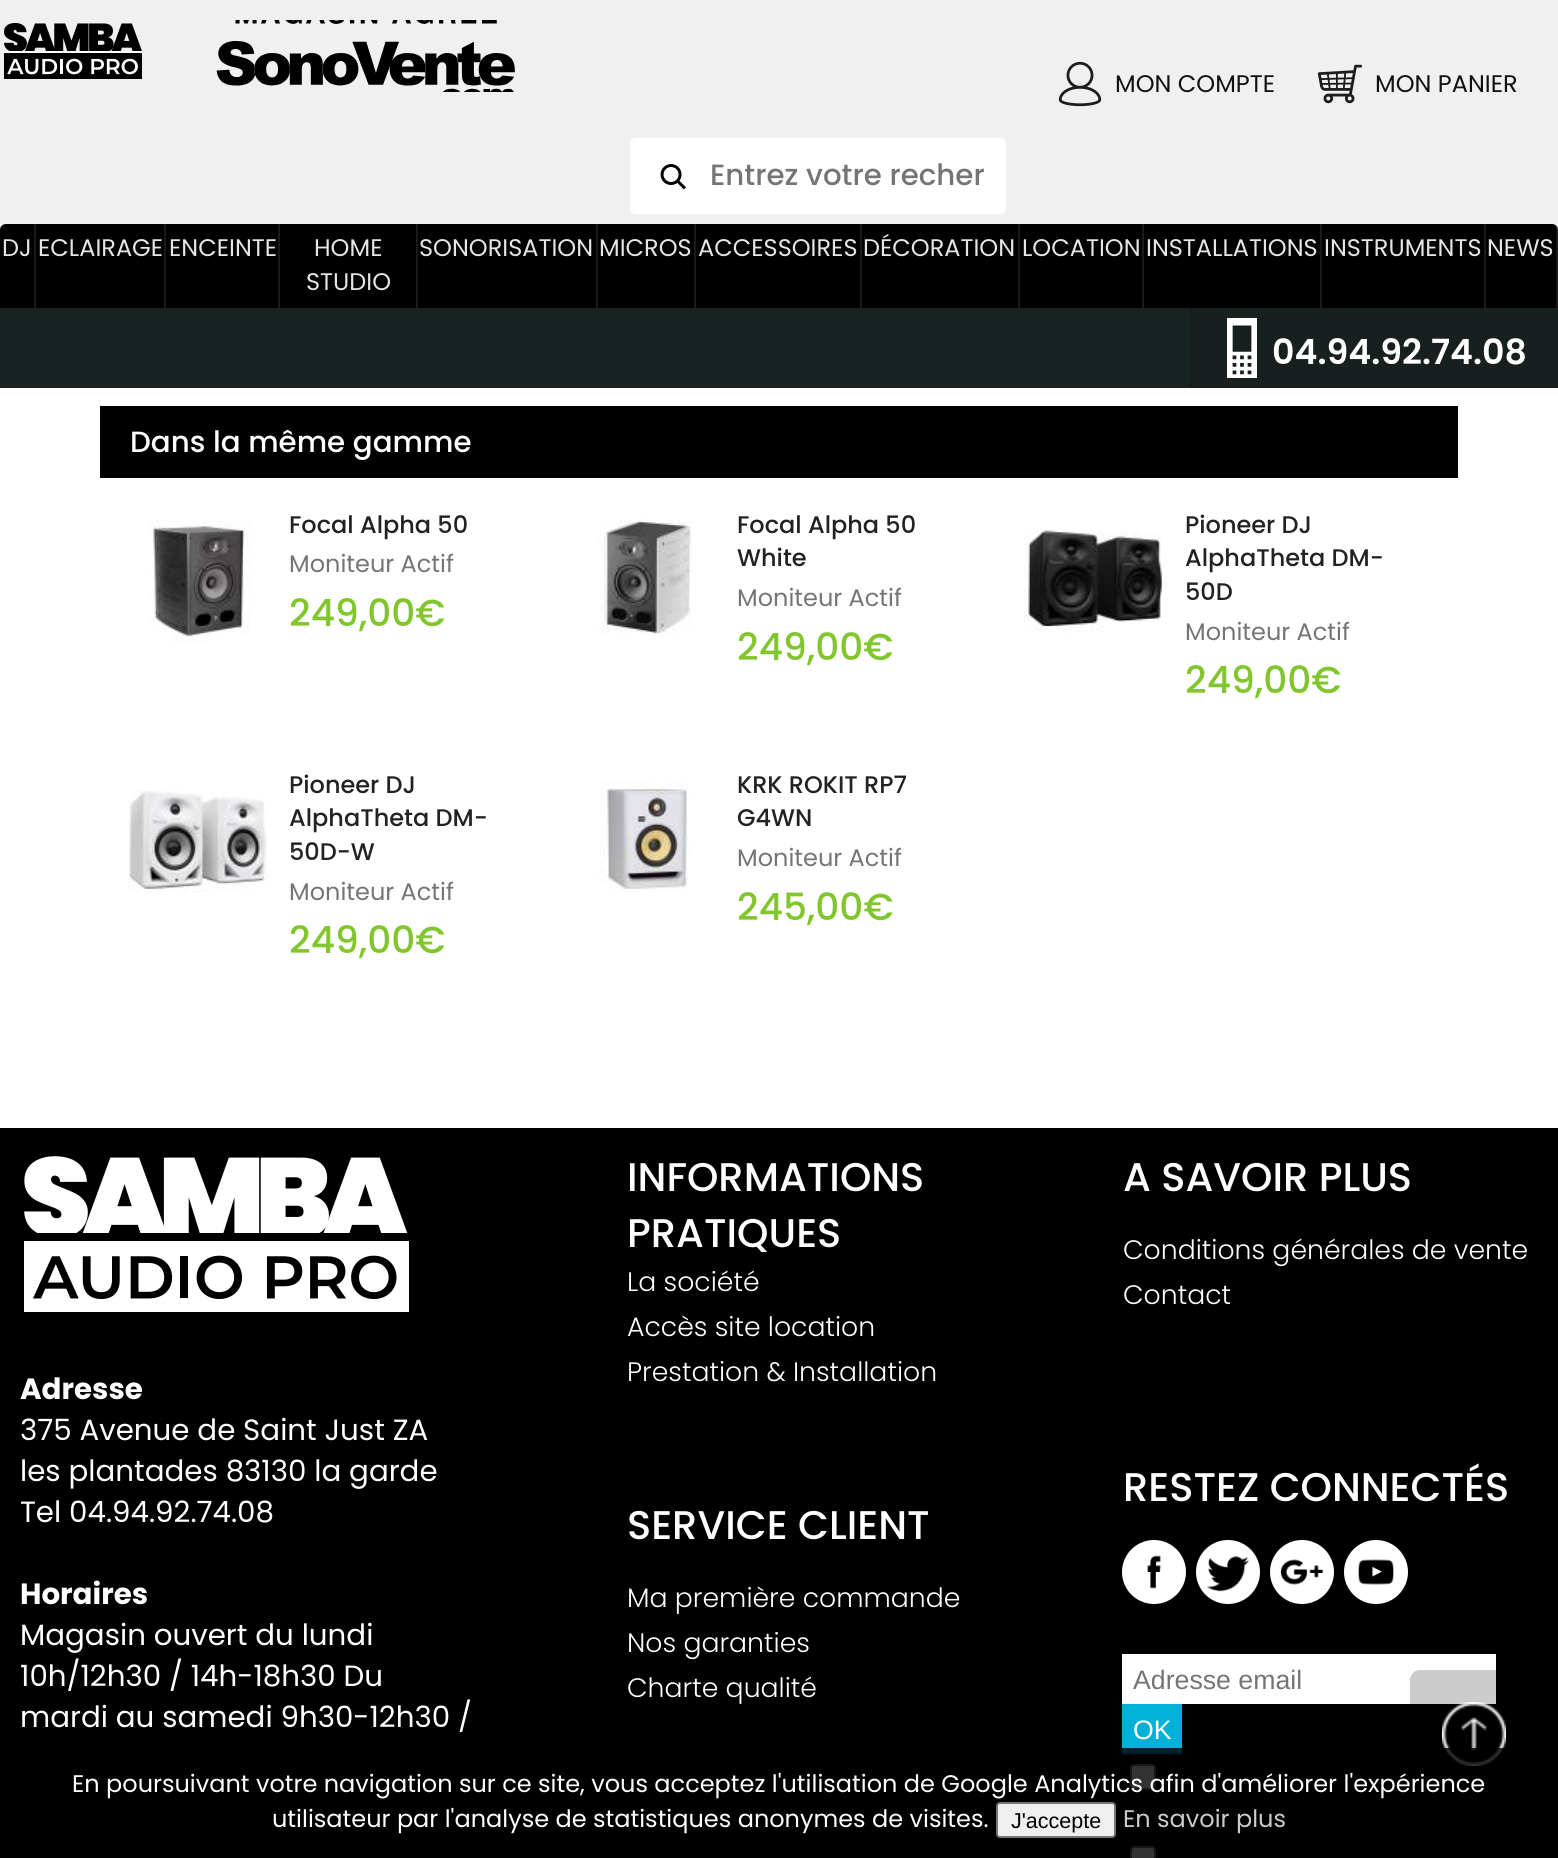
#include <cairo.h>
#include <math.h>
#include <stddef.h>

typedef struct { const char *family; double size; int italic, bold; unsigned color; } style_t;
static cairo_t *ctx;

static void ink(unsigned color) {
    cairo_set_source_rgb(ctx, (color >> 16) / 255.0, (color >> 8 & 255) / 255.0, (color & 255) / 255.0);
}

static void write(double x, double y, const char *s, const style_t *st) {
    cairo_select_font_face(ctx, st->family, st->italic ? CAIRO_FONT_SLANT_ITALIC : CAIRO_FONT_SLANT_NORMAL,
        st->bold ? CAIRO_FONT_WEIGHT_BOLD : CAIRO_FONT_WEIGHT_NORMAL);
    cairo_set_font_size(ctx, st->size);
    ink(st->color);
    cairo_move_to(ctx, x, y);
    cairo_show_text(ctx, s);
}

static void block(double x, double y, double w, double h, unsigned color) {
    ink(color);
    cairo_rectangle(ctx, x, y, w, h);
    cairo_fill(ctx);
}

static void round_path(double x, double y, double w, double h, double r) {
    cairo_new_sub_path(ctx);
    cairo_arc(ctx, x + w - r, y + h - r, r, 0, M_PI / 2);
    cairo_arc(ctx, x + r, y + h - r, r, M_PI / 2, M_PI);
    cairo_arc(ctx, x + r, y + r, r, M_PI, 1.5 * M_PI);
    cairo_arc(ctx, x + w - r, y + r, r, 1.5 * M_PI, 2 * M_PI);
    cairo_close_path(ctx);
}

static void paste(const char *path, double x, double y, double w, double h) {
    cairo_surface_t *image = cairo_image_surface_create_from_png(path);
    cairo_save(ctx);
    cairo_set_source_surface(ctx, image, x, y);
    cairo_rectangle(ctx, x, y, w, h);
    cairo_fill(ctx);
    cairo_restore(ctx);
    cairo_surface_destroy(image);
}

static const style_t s1 = {"Poppins", 24, 0, 0, 0x111111};
static const style_t s2 = {"Poppins Medium", 29.3, 0, 0, 0x757575};
static const style_t s3 = {"Poppins", 24, 0, 0, 0xe6e6e6};
static const style_t s4 = {"Poppins SemiBold", 34.75, 0, 0, 0xffffff};
static const style_t s5 = {"Poppins Medium", 29.3, 0, 0, 0xffffff};
static const style_t s6 = {"Poppins Medium", 24, 0, 0, 0x222222};
static const style_t s7 = {"Poppins", 24, 0, 0, 0x757575};
static const style_t s8 = {"Poppins Medium", 37.5, 0, 0, 0x81c62d};
static const style_t s9 = {"Poppins", 29.3, 0, 1, 0xffffff};
static const style_t s10 = {"Poppins", 29.3, 0, 0, 0xffffff};
static const style_t s11 = {"Poppins Medium", 40, 0, 0, 0xffffff};
static const style_t s12 = {"Poppins Light", 26.7, 0, 0, 0xffffff};
static const style_t s13 = {"Liberation Sans", 26.7, 0, 0, 0x757575};
static const style_t s14 = {"Liberation Sans", 26.7, 0, 0, 0xffffff};
static const style_t s15 = {"Poppins", 24, 0, 0, 0xffffff};
static const style_t s16 = {"Liberation Sans", 21.5, 0, 0, 0x000000};
static const style_t s17 = {"Poppins", 24, 0, 0, 0xcccccc};

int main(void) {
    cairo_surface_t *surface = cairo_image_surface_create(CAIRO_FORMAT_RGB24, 1558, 1858);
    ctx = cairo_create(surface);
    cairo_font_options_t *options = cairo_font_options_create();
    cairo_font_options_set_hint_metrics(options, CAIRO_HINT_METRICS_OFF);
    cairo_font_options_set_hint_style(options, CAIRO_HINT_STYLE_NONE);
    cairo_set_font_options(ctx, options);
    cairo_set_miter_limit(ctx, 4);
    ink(0x000000);
    cairo_paint(ctx);
    block(0, 0, 1558, 224, 0xf0f0f0);
    paste("pic1.png", 216, 20, 299, 72);
    paste("pic2.png", 4, 23, 139, 56);
    paste("pic3.png", 1058, 61, 44, 46);
    write(1115, 92, "MON COMPTE", &s1);
    paste("pic4.png", 1317, 64, 46, 40);
    write(1375, 92, "MON PANIER", &s1);
    ink(0xffffff);
    round_path(630, 138, 376, 76, 6);
    cairo_fill(ctx);
    paste("pic5.png", 660, 164, 26, 26);
    write(710, 185, "Entrez votre recher", &s2);
    block(0, 224, 1558, 904, 0xffffff);
    ink(0x000000);
    cairo_new_path(ctx);
    cairo_move_to(ctx, 6, 224);
    cairo_line_to(ctx, 1552, 224);
    cairo_curve_to(ctx, 1555.5, 224, 1558, 226.5, 1558, 230);
    cairo_line_to(ctx, 1558, 308);
    cairo_line_to(ctx, 0, 308);
    cairo_line_to(ctx, 0, 230);
    cairo_curve_to(ctx, 0, 226.5, 2.5, 224, 6, 224);
    cairo_close_path(ctx);
    cairo_fill(ctx);
    block(34, 224, 2, 84, 0x1a1a1a);
    write(2, 256, "DJ", &s3);
    block(164, 224, 2, 84, 0x1a1a1a);
    write(38, 256, "ECLAIRAGE", &s3);
    block(278, 224, 2, 84, 0x1a1a1a);
    write(169, 256, "ENCEINTE", &s3);
    block(416, 224, 2, 84, 0x1a1a1a);
    write(314, 256, "HOME", &s3);
    write(306, 290, "STUDIO", &s3);
    block(596, 224, 2, 84, 0x1a1a1a);
    write(419, 256, "SONORISATION", &s3);
    block(694, 224, 2, 84, 0x1a1a1a);
    write(599, 256, "MICROS", &s3);
    block(860, 224, 2, 84, 0x1a1a1a);
    write(698, 256, "ACCESSOIRES", &s3);
    block(1018, 224, 2, 84, 0x1a1a1a);
    write(863, 256, "DÉCORATION", &s3);
    block(1142, 224, 2, 84, 0x1a1a1a);
    write(1022, 256, "LOCATION", &s3);
    block(1320, 224, 2, 84, 0x1a1a1a);
    write(1146, 256, "INSTALLATIONS", &s3);
    block(1484, 224, 2, 84, 0x1a1a1a);
    write(1324, 256, "INSTRUMENTS", &s3);
    cairo_set_source_rgba(ctx, 1, 1, 1, 0.1);
    cairo_rectangle(ctx, 1556, 224, 2, 84);
    cairo_fill(ctx);
    write(1487, 256, "NEWS", &s3);
    block(0, 308, 1190, 80, 0x182220);
    block(1192, 308, 366, 80, 0x17201e);
    paste("pic6.png", 1227, 318, 30, 60);
    block(1190, 308, 2, 80, 0x151d1b);
    write(1272, 364, "04.94.92.74.08", &s4);
    block(100, 406, 1358, 72, 0x000000);
    write(130, 452, "Dans la même gamme", &s5);
    paste("pic7.png", 150, 520, 101, 124);
    write(289, 533, "Focal Alpha 50", &s6);
    write(289, 572, "Moniteur Actif", &s7);
    write(289, 626, "249,00€", &s8);
    paste("pic8.png", 599, 519, 93, 115);
    write(737, 533, "Focal Alpha 50", &s6);
    write(737, 566, "White", &s6);
    write(737, 606, "Moniteur Actif", &s7);
    write(737, 660, "249,00€", &s8);
    paste("pic9.png", 1024, 530, 142, 103);
    write(1185, 533, "Pioneer DJ", &s6);
    write(1185, 566, "AlphaTheta DM-", &s6);
    write(1185, 600, "50D", &s6);
    write(1185, 640, "Moniteur Actif", &s7);
    write(1185, 693, "249,00€", &s8);
    paste("pic10.png", 128, 790, 140, 103);
    write(289, 793, "Pioneer DJ", &s6);
    write(289, 826, "AlphaTheta DM-", &s6);
    write(289, 860, "50D-W", &s6);
    write(289, 900, "Moniteur Actif", &s7);
    write(289, 953, "249,00€", &s8);
    paste("pic11.png", 599, 780, 91, 113);
    write(737, 793, "KRK ROKIT RP7", &s6);
    write(737, 826, "G4WN", &s6);
    write(737, 866, "Moniteur Actif", &s7);
    write(737, 920, "245,00€", &s8);
    paste("pic12.png", 24, 1156, 385, 156);
    write(20, 1399, "Adresse", &s9);
    write(20, 1440, "375 Avenue de Saint Just ZA", &s10);
    write(20, 1481, "les plantades 83130 la garde", &s10);
    write(20, 1522, "Tel 04.94.92.74.08", &s10);
    write(20, 1604, "Horaires", &s9);
    write(20, 1645, "Magasin ouvert du lundi", &s10);
    write(20, 1686, "10h/12h30 / 14h-18h30 Du", &s10);
    write(20, 1727, "mardi au samedi 9h30-12h30 /", &s10);
    write(627, 1191, "INFORMATIONS", &s11);
    write(627, 1247, "PRATIQUES", &s11);
    write(627, 1291, "La société", &s12);
    write(627, 1336, "Accès site location", &s12);
    write(627, 1381, "Prestation & Installation", &s12);
    write(1123, 1191, "A SAVOIR PLUS", &s11);
    write(1123, 1259, "Conditions générales de vente", &s12);
    write(1123, 1304, "Contact", &s12);
    write(627, 1539, "SERVICE CLIENT", &s11);
    write(627, 1607, "Ma première commande", &s12);
    write(627, 1652, "Nos garanties", &s12);
    write(627, 1697, "Charte qualité", &s12);
    write(1123, 1501, "RESTEZ CONNECTÉS", &s11);
    cairo_new_path(ctx);
    cairo_arc(ctx, 1154, 1572, 32, 0, 2 * M_PI);
    cairo_fill(ctx);
    paste("pic13.png", 1147, 1555, 14, 34);
    cairo_arc(ctx, 1228, 1572, 32, 0, 2 * M_PI);
    cairo_fill(ctx);
    paste("pic14.png", 1207, 1555, 42, 37);
    cairo_arc(ctx, 1302, 1572, 32, 0, 2 * M_PI);
    cairo_fill(ctx);
    paste("pic15.png", 1280, 1559, 44, 26);
    cairo_arc(ctx, 1376, 1572, 32, 0, 2 * M_PI);
    cairo_fill(ctx);
    paste("pic16.png", 1358, 1559, 36, 26);
    block(1122, 1654, 374, 50, 0xffffff);
    write(1133, 1689, "Adresse email", &s13);
    block(1122, 1704, 60, 50, 0x01b1d8);
    write(1133, 1739, "OK", &s14);
    round_path(1131, 1765, 24, 24, 3);
    cairo_fill_preserve(ctx);
    ink(0x767676);
    cairo_stroke(ctx);
    ink(0xffffff);
    round_path(1131, 1847, 24, 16, 3);
    cairo_fill_preserve(ctx);
    ink(0x767676);
    cairo_stroke(ctx);
    cairo_set_source_rgba(ctx, 0, 0, 0, 0.2);
    round_path(1410, 1670, 128, 128, 10);
    cairo_fill(ctx);
    paste("pic17.png", 1442, 1702, 64, 64);
    cairo_set_source_rgba(ctx, 0, 0, 0, 0.8);
    cairo_rectangle(ctx, 1122, 1748, 383, 110);
    cairo_fill(ctx);
    write(72, 1792, "En poursuivant votre navigation sur ce site, vous acceptez l'utilisation de Google Analytics afin d'améliorer l'expérience", &s15);
    write(272, 1827, "utilisateur par l'analyse de statistiques anonymes de visites.", &s15);
    ink(0xefefef);
    round_path(997, 1803, 118, 34, 3);
    cairo_fill_preserve(ctx);
    ink(0x767676);
    cairo_stroke(ctx);
    write(1011, 1828, "J'accepte", &s16);
    write(1123, 1827, "En savoir plus", &s17);
    cairo_surface_write_to_png(surface, "screenshot.png");
    cairo_font_options_destroy(options);
    cairo_destroy(ctx);
    cairo_surface_destroy(surface);
    return 0;
}
